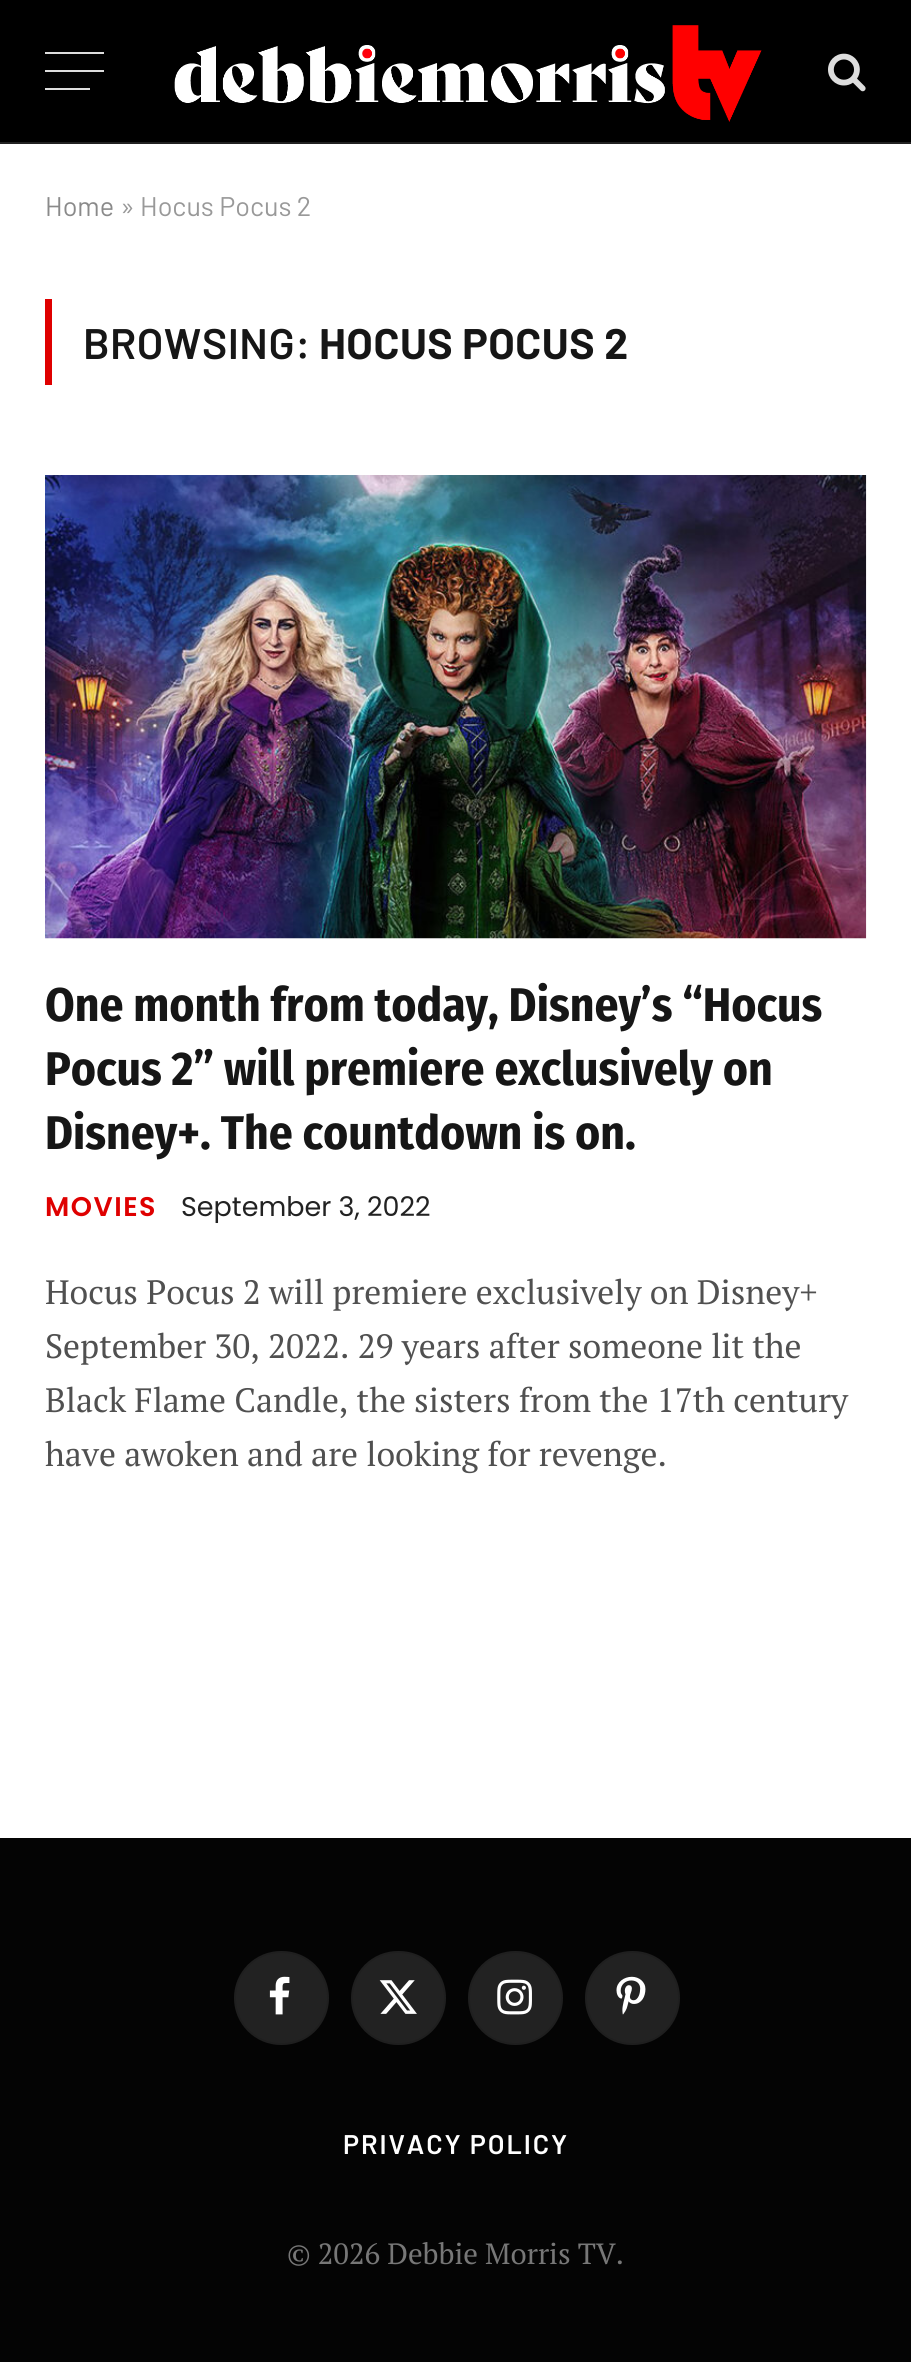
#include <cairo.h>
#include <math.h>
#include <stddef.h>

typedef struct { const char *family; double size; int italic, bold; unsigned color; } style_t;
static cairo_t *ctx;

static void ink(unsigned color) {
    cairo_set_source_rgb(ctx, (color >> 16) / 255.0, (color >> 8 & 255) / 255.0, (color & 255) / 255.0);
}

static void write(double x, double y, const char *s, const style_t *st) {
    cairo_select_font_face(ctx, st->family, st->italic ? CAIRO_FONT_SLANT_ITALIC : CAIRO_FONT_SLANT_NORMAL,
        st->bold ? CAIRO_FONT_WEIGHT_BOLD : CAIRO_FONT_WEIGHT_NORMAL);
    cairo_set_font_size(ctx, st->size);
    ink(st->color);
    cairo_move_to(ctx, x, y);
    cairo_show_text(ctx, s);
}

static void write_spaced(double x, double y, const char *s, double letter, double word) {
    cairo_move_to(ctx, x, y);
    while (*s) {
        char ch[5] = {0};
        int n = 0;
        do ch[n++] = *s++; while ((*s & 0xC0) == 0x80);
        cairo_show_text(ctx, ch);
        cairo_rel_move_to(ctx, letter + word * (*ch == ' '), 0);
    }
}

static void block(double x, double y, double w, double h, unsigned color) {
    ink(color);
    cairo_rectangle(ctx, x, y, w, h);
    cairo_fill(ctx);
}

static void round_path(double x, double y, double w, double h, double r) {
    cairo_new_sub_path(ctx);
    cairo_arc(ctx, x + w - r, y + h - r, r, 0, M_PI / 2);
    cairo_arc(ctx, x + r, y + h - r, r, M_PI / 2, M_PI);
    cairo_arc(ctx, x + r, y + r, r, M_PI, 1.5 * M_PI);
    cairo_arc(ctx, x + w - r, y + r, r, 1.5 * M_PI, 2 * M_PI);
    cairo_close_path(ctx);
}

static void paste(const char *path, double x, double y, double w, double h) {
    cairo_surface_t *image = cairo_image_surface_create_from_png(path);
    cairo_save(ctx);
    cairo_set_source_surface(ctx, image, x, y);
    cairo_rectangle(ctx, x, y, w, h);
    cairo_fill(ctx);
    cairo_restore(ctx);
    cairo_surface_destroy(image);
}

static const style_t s1 = {"Barlow", 27, 0, 0, 0x8a8a8a};
static const style_t s2 = {"Barlow", 27, 0, 0, 0x999999};
static const style_t s3 = {"Fira Sans Condensed", 47.25, 0, 1, 0x161616};
static const style_t s4 = {"Poppins", 27, 0, 0, 0x222222};
static const style_t s5 = {"PT Serif", 33.75, 0, 0, 0x505050};
static const style_t s6 = {"PT Serif", 29.25, 0, 0, 0x777777};

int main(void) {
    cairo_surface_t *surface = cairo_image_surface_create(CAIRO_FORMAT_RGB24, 911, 2362);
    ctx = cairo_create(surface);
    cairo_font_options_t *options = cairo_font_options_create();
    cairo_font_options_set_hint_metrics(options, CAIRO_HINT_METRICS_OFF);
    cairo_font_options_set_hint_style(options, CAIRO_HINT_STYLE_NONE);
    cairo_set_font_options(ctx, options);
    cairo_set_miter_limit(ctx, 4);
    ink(0xffffff);
    cairo_paint(ctx);
    block(0, 0, 911, 142, 0x000000);
    block(0, 142, 911, 2, 0x222222);
    block(45, 88, 45, 2, 0xdddddd);
    block(45, 52, 59, 2, 0xdddddd);
    block(45, 70, 59, 2, 0xdddddd);
    paste("pic1.png", 174, 25, 588, 97);
    paste("pic2.png", 828, 53, 38, 39);
    write(45, 216, "Home", &s1);
    write(120, 216, "» Hocus Pocus 2", &s2);
    block(45, 299, 7, 86, 0xdf0000);
    cairo_select_font_face(ctx, "Barlow SemiBold", CAIRO_FONT_SLANT_NORMAL, CAIRO_FONT_WEIGHT_NORMAL);
    cairo_set_font_size(ctx, 42.75);
    ink(0x161616);
    write_spaced(83, 359, "BROWSING:", 0.5, 0);
    cairo_select_font_face(ctx, "Barlow", CAIRO_FONT_SLANT_NORMAL, CAIRO_FONT_WEIGHT_BOLD);
    write_spaced(319, 359, "HOCUS POCUS 2", 0.5, 0);
    paste("pic3.png", 45, 475, 822, 464);
    write(45, 1021, "One month from today, Disney’s “Hocus", &s3);
    write(45, 1085, "Pocus 2” will premiere exclusively on", &s3);
    write(45, 1149, "Disney+. The countdown is on.", &s3);
    cairo_select_font_face(ctx, "Poppins SemiBold", CAIRO_FONT_SLANT_NORMAL, CAIRO_FONT_WEIGHT_NORMAL);
    cairo_set_font_size(ctx, 27);
    ink(0xdf0000);
    write_spaced(45, 1216, "MOVIES", 1.5, 0);
    write(181, 1216, "September 3, 2022", &s4);
    write(45, 1304, "Hocus Pocus 2 will premiere exclusively on Disney+", &s5);
    write(45, 1358, "September 30, 2022. 29 years after someone lit the", &s5);
    write(45, 1412, "Black Flame Candle, the sisters from the 17th century", &s5);
    write(45, 1466, "have awoken and are looking for revenge.", &s5);
    block(0, 1838, 911, 524, 0x040404);
    ink(0x222222);
    round_path(234, 1951, 95, 94, 47);
    cairo_fill(ctx);
    round_path(235, 1952, 93, 92, 46);
    cairo_set_source_rgba(ctx, 0, 0, 0, 0.09);
    cairo_stroke(ctx);
    paste("pic4.png", 269, 1976, 21, 39);
    ink(0x222222);
    round_path(351, 1951, 95, 94, 47);
    cairo_fill(ctx);
    round_path(352, 1952, 93, 92, 46);
    cairo_set_source_rgba(ctx, 0, 0, 0, 0.09);
    cairo_stroke(ctx);
    paste("pic5.png", 379, 1980, 38, 34);
    ink(0x222222);
    round_path(468, 1951, 95, 94, 47);
    cairo_fill(ctx);
    round_path(469, 1952, 93, 92, 46);
    cairo_set_source_rgba(ctx, 0, 0, 0, 0.09);
    cairo_stroke(ctx);
    paste("pic6.png", 497, 1979, 35, 36);
    ink(0x222222);
    round_path(585, 1951, 95, 94, 47);
    cairo_fill(ctx);
    round_path(586, 1952, 93, 92, 46);
    cairo_set_source_rgba(ctx, 0, 0, 0, 0.09);
    cairo_stroke(ctx);
    paste("pic7.png", 616, 1976, 30, 39);
    cairo_select_font_face(ctx, "Barlow SemiBold", CAIRO_FONT_SLANT_NORMAL, CAIRO_FONT_WEIGHT_NORMAL);
    cairo_set_font_size(ctx, 27);
    ink(0xffffff);
    write_spaced(343, 2154, "PRIVACY POLICY", 1.9, 0);
    write(287, 2264, "© 2026 Debbie Morris TV.", &s6);
    cairo_surface_write_to_png(surface, "screenshot.png");
    cairo_font_options_destroy(options);
    cairo_destroy(ctx);
    cairo_surface_destroy(surface);
    return 0;
}
